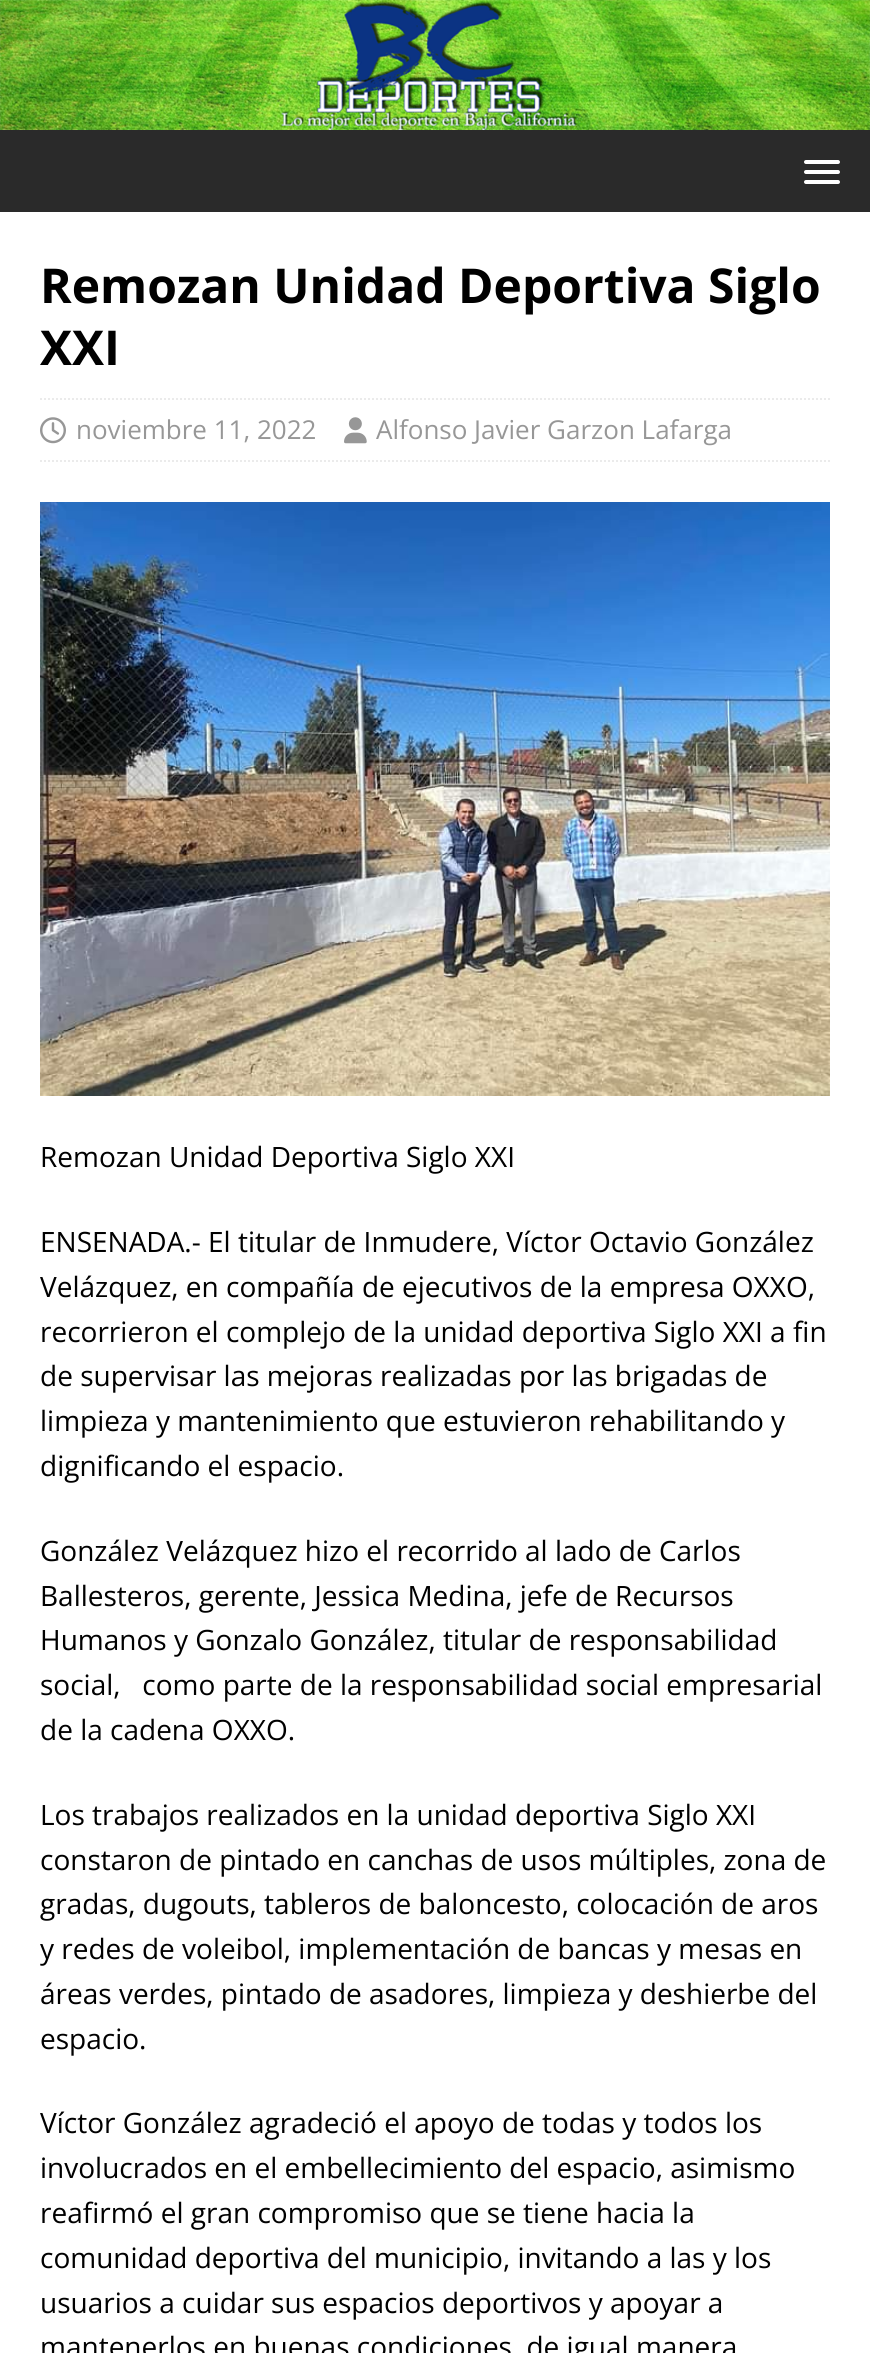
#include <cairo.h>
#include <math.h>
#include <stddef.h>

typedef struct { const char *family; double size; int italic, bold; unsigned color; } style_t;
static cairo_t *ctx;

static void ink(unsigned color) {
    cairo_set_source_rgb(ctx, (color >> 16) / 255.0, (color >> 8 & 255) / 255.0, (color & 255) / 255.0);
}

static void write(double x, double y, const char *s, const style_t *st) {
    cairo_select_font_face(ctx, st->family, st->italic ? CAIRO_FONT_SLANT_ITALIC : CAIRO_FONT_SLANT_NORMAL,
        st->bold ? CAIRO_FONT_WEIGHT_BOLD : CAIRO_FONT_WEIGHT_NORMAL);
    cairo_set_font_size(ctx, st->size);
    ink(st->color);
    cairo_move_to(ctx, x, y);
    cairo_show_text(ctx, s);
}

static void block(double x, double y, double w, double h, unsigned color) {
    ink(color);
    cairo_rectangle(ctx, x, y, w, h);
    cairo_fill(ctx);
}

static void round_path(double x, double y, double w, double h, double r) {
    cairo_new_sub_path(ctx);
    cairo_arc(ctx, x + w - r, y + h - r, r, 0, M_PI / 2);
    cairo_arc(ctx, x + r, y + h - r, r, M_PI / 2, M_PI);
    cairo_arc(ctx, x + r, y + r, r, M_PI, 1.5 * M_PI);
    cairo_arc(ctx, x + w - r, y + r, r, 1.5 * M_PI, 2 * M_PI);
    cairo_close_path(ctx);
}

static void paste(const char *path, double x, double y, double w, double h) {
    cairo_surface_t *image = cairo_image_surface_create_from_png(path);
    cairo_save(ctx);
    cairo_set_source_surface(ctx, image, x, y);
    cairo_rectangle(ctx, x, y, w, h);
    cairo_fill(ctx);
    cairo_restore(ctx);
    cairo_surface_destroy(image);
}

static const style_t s1 = {"Open Sans", 48, 0, 1, 0x000000};
static const style_t s2 = {"Open Sans", 26, 0, 0, 0x979797};
static const style_t s3 = {"Open Sans", 28, 0, 0, 0x000000};

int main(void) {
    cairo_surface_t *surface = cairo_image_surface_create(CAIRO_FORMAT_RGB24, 870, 2353);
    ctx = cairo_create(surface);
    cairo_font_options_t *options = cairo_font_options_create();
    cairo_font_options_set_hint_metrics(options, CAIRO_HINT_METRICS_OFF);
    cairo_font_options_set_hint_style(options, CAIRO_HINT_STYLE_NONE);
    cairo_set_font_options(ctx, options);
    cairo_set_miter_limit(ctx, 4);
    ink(0x2a2a2a);
    cairo_paint(ctx);
    paste("pic1.png", 0, 0, 870, 130);
    ink(0xffffff);
    round_path(804, 160, 36, 4, 2);
    cairo_fill(ctx);
    round_path(804, 170, 36, 4, 2);
    cairo_fill(ctx);
    round_path(804, 180, 36, 4, 2);
    cairo_fill(ctx);
    block(0, 212, 870, 2141, 0xffffff);
    write(40, 303, "Remozan Unidad Deportiva Siglo", &s1);
    write(40, 365, "XXI", &s1);
    cairo_new_path(ctx);
    cairo_move_to(ctx, 40, 399);
    cairo_line_to(ctx, 830, 399);
    ink(0xebebeb);
    cairo_set_dash(ctx, (double[]){2, 2}, 2, 0);
    cairo_stroke(ctx);
    cairo_new_path(ctx);
    cairo_move_to(ctx, 40, 461);
    cairo_line_to(ctx, 830, 461);
    cairo_stroke(ctx);
    paste("pic2.png", 40, 417, 26, 27);
    write(76, 439, "noviembre 11, 2022", &s2);
    paste("pic3.png", 344, 417, 23, 27);
    write(376, 439, "Alfonso Javier Garzon Lafarga", &s2);
    paste("pic4.png", 40, 502, 790, 594);
    write(40, 1167, "Remozan Unidad Deportiva Siglo XXI", &s3);
    write(40, 1252, "ENSENADA.- El titular de Inmudere, Víctor Octavio González", &s3);
    write(40, 1297, "Velázquez, en compañía de ejecutivos de la empresa OXXO,", &s3);
    write(40, 1342, "recorrieron el complejo de la unidad deportiva Siglo XXI a fin", &s3);
    write(40, 1386, "de supervisar las mejoras realizadas por las brigadas de", &s3);
    write(40, 1431, "limpieza y mantenimiento que estuvieron rehabilitando y", &s3);
    write(40, 1476, "dignificando el espacio.", &s3);
    write(40, 1561, "González Velázquez hizo el recorrido al lado de Carlos", &s3);
    write(40, 1606, "Ballesteros, gerente, Jessica Medina, jefe de Recursos", &s3);
    write(40, 1650, "Humanos y Gonzalo González, titular de responsabilidad", &s3);
    write(40, 1695, "social,   como parte de la responsabilidad social empresarial", &s3);
    write(40, 1740, "de la cadena OXXO.", &s3);
    write(40, 1825, "Los trabajos realizados en la unidad deportiva Siglo XXI", &s3);
    write(40, 1870, "constaron de pintado en canchas de usos múltiples, zona de", &s3);
    write(40, 1914, "gradas, dugouts, tableros de baloncesto, colocación de aros", &s3);
    write(40, 1959, "y redes de voleibol, implementación de bancas y mesas en", &s3);
    write(40, 2004, "áreas verdes, pintado de asadores, limpieza y deshierbe del", &s3);
    write(40, 2049, "espacio.", &s3);
    write(40, 2133, "Víctor González agradeció el apoyo de todas y todos los", &s3);
    write(40, 2178, "involucrados en el embellecimiento del espacio, asimismo", &s3);
    write(40, 2223, "reafirmó el gran compromiso que se tiene hacia la", &s3);
    write(40, 2268, "comunidad deportiva del municipio, invitando a las y los", &s3);
    write(40, 2313, "usuarios a cuidar sus espacios deportivos y apoyar a", &s3);
    write(40, 2357, "mantenerlos en buenas condiciones, de igual manera", &s3);
    cairo_surface_write_to_png(surface, "screenshot.png");
    cairo_font_options_destroy(options);
    cairo_destroy(ctx);
    cairo_surface_destroy(surface);
    return 0;
}
